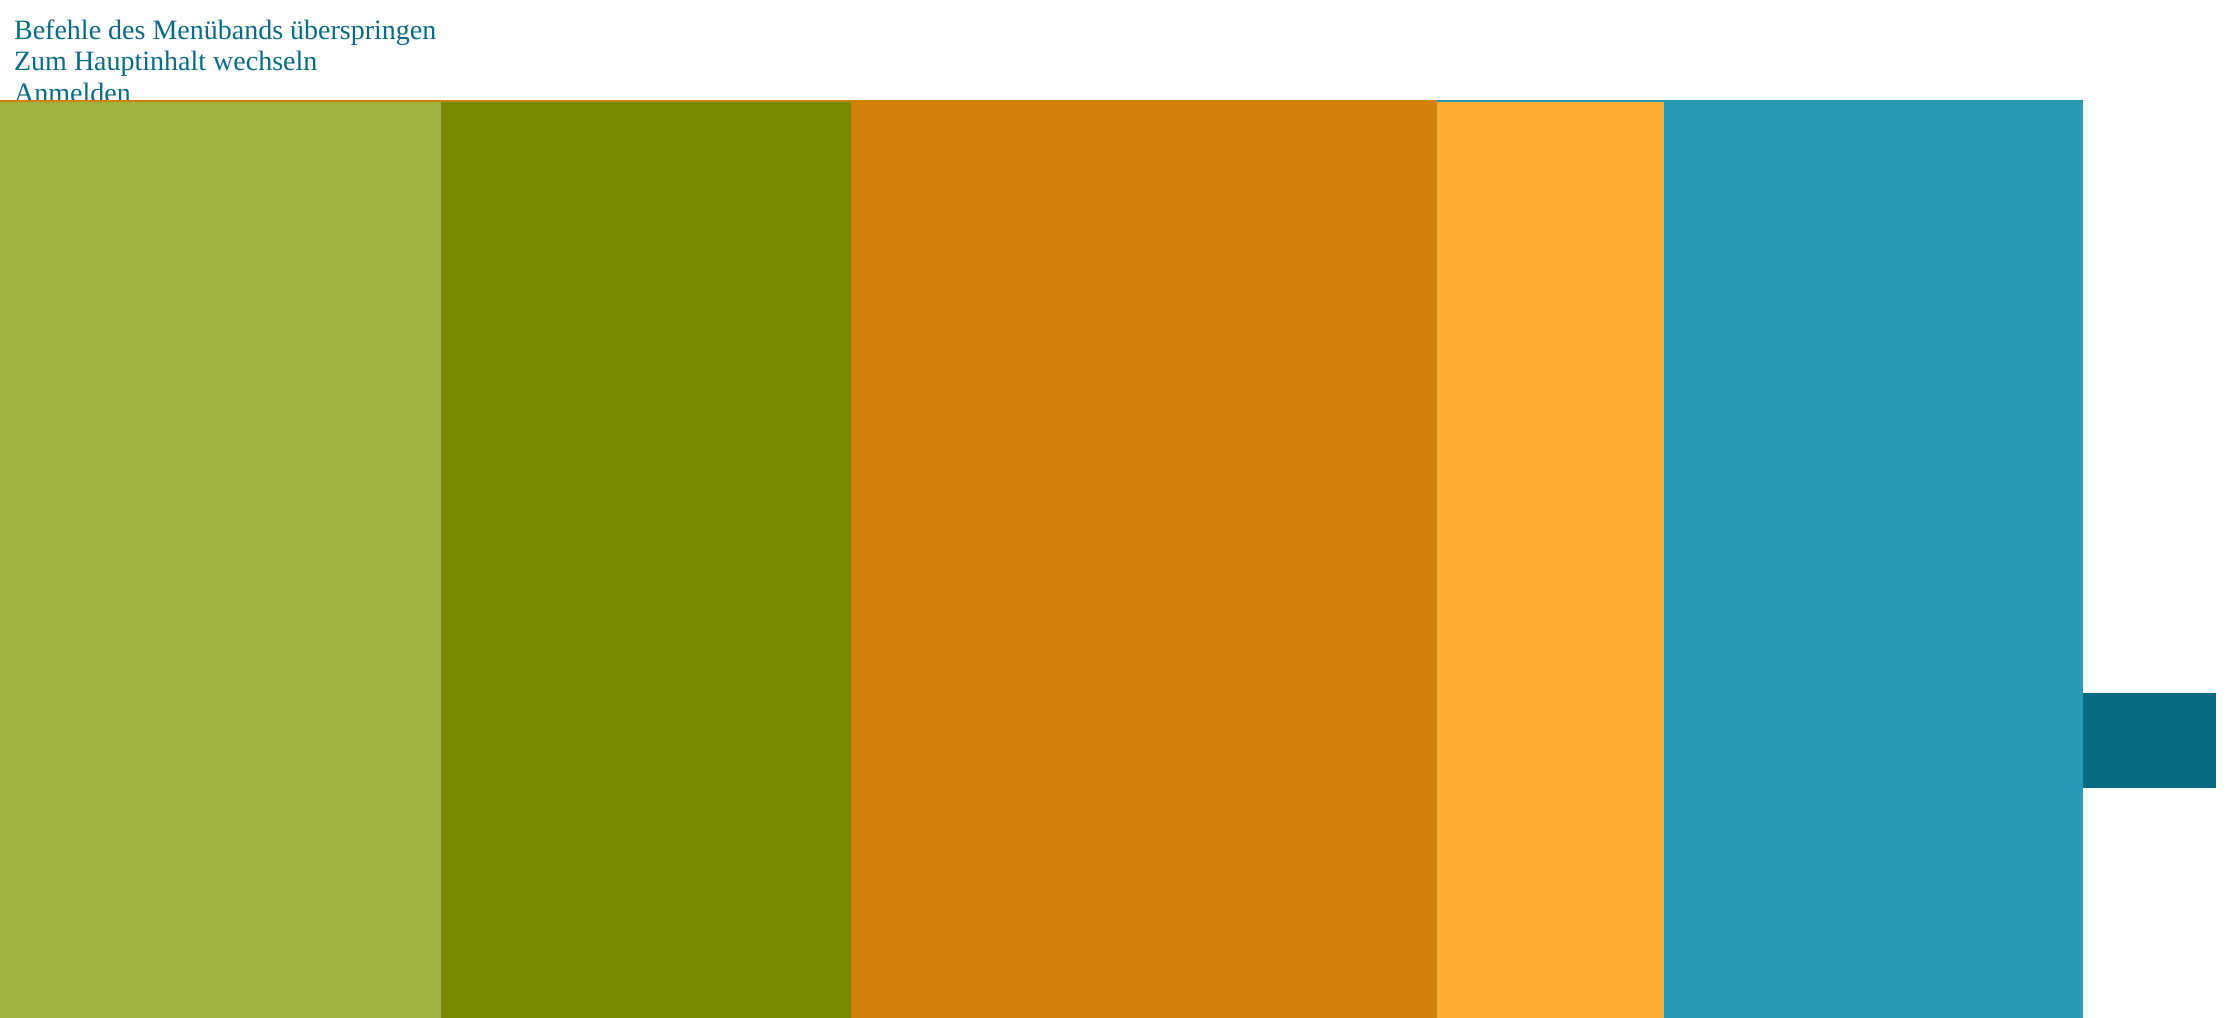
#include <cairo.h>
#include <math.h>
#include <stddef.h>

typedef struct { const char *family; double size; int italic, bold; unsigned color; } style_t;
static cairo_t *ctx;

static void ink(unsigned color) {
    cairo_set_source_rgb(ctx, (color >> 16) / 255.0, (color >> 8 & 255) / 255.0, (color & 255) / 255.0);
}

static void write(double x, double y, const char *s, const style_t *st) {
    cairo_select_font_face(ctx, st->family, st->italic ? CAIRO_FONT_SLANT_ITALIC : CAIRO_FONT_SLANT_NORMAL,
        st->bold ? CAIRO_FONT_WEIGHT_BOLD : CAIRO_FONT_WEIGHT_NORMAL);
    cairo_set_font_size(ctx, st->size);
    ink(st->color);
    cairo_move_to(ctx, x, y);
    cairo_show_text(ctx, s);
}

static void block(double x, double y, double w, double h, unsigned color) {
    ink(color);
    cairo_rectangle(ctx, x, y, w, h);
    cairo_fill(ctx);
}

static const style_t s1 = {"Liberation Serif", 28, 0, 0, 0x0a6a81};

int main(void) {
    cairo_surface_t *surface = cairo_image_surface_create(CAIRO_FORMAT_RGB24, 2229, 1018);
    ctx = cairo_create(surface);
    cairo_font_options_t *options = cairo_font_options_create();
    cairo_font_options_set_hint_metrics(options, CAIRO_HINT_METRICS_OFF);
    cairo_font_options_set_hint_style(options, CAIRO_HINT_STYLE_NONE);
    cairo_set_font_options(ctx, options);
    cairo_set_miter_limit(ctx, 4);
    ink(0xffffff);
    cairo_paint(ctx);
    write(14, 39, "Befehle des Menübands überspringen", &s1);
    write(14, 70, "Zum Hauptinhalt wechseln", &s1);
    write(14, 102, "Anmelden", &s1);
    block(0, 100, 1437, 918, 0xd0810b);
    block(1437, 100, 646, 918, 0x2799b4);
    block(0, 102, 441, 916, 0xa0b141);
    block(441, 102, 410, 916, 0x768900);
    block(1437, 102, 227, 916, 0xffad32);
    block(2083, 693, 133, 95, 0x0a6a81);
    cairo_surface_write_to_png(surface, "screenshot.png");
    cairo_font_options_destroy(options);
    cairo_destroy(ctx);
    cairo_surface_destroy(surface);
    return 0;
}
